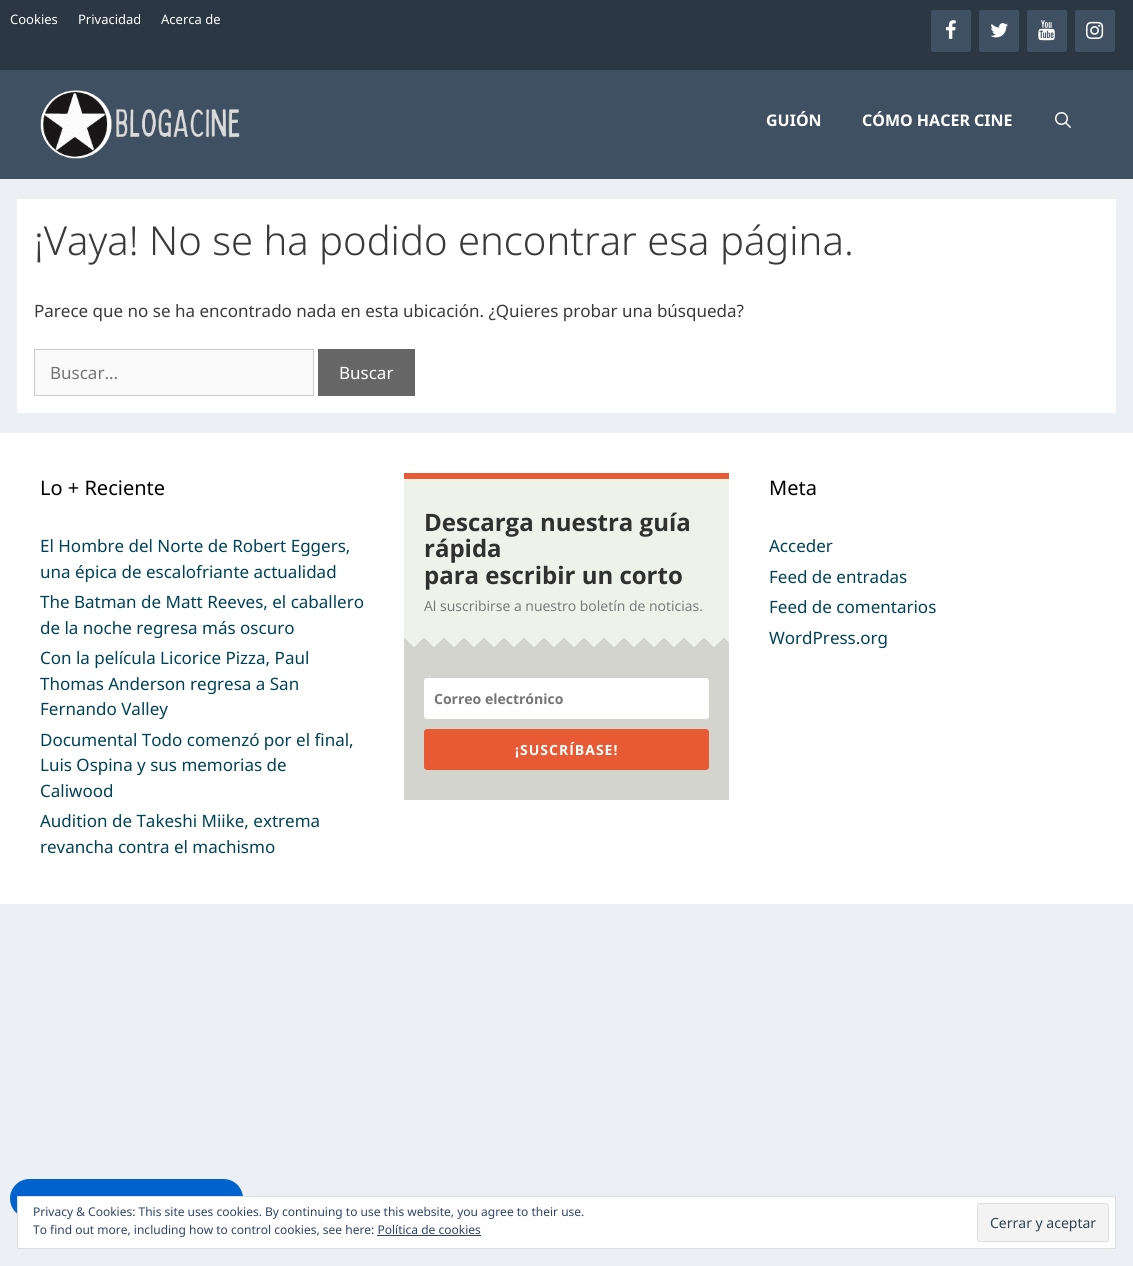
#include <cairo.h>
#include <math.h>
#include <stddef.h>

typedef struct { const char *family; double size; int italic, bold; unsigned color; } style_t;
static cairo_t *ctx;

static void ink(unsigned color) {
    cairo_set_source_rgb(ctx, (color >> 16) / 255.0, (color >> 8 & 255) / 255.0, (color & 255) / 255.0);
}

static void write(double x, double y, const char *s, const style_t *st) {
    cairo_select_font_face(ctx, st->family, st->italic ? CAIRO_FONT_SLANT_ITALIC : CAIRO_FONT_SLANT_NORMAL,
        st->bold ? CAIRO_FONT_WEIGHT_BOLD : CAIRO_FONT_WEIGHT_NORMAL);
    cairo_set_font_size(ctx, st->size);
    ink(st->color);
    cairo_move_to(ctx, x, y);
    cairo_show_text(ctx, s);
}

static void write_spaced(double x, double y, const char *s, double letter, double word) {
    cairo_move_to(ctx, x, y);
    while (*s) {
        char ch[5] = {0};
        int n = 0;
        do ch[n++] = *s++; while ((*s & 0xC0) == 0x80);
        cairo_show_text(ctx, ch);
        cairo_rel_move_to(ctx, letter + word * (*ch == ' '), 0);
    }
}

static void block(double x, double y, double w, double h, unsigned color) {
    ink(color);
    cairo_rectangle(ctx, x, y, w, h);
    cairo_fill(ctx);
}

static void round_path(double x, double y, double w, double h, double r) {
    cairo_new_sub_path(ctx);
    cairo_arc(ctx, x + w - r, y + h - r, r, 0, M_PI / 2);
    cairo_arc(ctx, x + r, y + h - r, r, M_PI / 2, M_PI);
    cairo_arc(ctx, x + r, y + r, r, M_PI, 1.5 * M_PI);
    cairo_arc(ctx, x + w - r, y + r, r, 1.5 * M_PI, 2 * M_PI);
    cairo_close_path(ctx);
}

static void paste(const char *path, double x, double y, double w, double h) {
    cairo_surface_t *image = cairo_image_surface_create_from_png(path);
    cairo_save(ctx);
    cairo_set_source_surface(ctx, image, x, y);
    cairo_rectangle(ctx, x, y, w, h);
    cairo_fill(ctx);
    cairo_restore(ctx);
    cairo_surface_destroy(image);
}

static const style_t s1 = {"Noto Sans", 13, 0, 0, 0xffffff};
static const style_t s2 = {"Noto Sans", 16, 0, 1, 0xffffff};
static const style_t s3 = {"Noto Sans Light", 40, 0, 0, 0x3a3a3a};
static const style_t s4 = {"Noto Sans", 17, 0, 0, 0x3a3a3a};
static const style_t s5 = {"Noto Sans", 17, 0, 0, 0x757575};
static const style_t s6 = {"Noto Sans", 17, 0, 0, 0xffffff};
static const style_t s7 = {"Noto Sans", 20, 0, 0, 0x000000};
static const style_t s8 = {"Noto Sans", 17, 0, 0, 0x004256};
static const style_t s9 = {"Open Sans", 24, 0, 1, 0x30302f};
static const style_t s10 = {"Open Sans", 14, 0, 0, 0x757575};
static const style_t s11 = {"Open Sans", 14, 0, 1, 0x757575};
static const style_t s12 = {"Noto Sans", 12, 0, 0, 0x2e4467};
static const style_t s13 = {"Noto Sans", 14, 0, 0, 0x2e4453};

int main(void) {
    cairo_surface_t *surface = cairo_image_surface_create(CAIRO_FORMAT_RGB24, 1133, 1266);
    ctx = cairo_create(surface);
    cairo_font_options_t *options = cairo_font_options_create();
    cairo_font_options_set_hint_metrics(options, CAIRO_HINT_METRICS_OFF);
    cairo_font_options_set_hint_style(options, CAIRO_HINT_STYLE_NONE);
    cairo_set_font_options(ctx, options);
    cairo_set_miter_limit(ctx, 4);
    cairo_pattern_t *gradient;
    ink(0xecf0f5);
    cairo_paint(ctx);
    block(0, 0, 1133, 70, 0x2b3843);
    write(10, 24, "Cookies", &s1);
    write(78, 24, "Privacidad", &s1);
    write(161, 24, "Acerca de", &s1);
    ink(0x3e5062);
    round_path(931, 10, 40, 42, 2);
    cairo_fill(ctx);
    paste("pic1.png", 946, 20, 10, 19);
    round_path(979, 10, 40, 42, 2);
    cairo_fill(ctx);
    paste("pic2.png", 990, 23, 18, 15);
    round_path(1027, 10, 40, 42, 2);
    cairo_fill(ctx);
    paste("pic3.png", 1038, 20, 17, 21);
    round_path(1075, 10, 40, 42, 2);
    cairo_fill(ctx);
    paste("pic4.png", 1086, 21, 18, 18);
    block(0, 70, 1133, 109, 0x3e5062);
    paste("pic5.png", 40, 90, 200, 69);
    write(766, 126, "GUIÓN", &s2);
    write(862, 126, "CÓMO HACER CINE", &s2);
    paste("pic6.png", 1055, 112, 16, 16);
    block(17, 199, 1099, 214, 0xffffff);
    write(34, 255, "¡Vaya! No se ha podido encontrar esa página.", &s3);
    write(34, 317, "Parece que no se ha encontrado nada en esta ubicación. ¿Quieres probar una búsqueda?", &s4);
    ink(0xfafafa);
    cairo_rectangle(ctx, 34.5, 349.5, 279, 46);
    cairo_fill_preserve(ctx);
    ink(0xcccccc);
    cairo_set_line_width(ctx, 1);
    cairo_stroke(ctx);
    write(50, 379, "Buscar...", &s5);
    block(318, 349, 97, 47, 0x666666);
    write(339, 379, "Buscar", &s6);
    block(0, 433, 1133, 471, 0xffffff);
    write(40, 495, "Lo + Reciente", &s7);
    write(40, 552, "El Hombre del Norte de Robert Eggers,", &s8);
    write(40, 578, "una épica de escalofriante actualidad", &s8);
    write(40, 608, "The Batman de Matt Reeves, el caballero", &s8);
    write(40, 634, "de la noche regresa más oscuro", &s8);
    write(40, 664, "Con la película Licorice Pizza, Paul", &s8);
    write(40, 690, "Thomas Anderson regresa a San", &s8);
    write(40, 715, "Fernando Valley", &s8);
    write(40, 746, "Documental Todo comenzó por el final,", &s8);
    write(40, 771, "Luis Ospina y sus memorias de", &s8);
    write(40, 797, "Caliwood", &s8);
    write(40, 827, "Audition de Takeshi Miike, extrema", &s8);
    write(40, 853, "revancha contra el machismo", &s8);
    block(404, 473, 325, 6, 0xe85a34);
    block(404, 479, 325, 159, 0xeff2e9);
    write(424, 531, "Descarga nuestra guía", &s9);
    write(424, 557, "rápida", &s9);
    write(424, 584, "para escribir un corto", &s9);
    write(424, 611, "Al suscribirse a nuestro boletín de noticias.", &s10);
    block(404, 648, 325, 152, 0xd3d4cd);
    gradient = cairo_pattern_create_linear(429, 673, 399, 643);
    cairo_pattern_add_color_stop_rgba(gradient, 0.33, 0.937, 0.949, 0.914, 1);
    cairo_pattern_add_color_stop_rgba(gradient, 0.33, 0.827, 0.831, 0.804, 1);
    cairo_pattern_add_color_stop_rgba(gradient, 0.67, 0.827, 0.831, 0.804, 1);
    cairo_pattern_add_color_stop_rgba(gradient, 0.67, 0.937, 0.949, 0.914, 1);
    cairo_set_source(ctx, gradient);
    cairo_pattern_destroy(gradient);
    cairo_rectangle(ctx, 405, 638, 19, 10);
    cairo_fill(ctx);
    gradient = cairo_pattern_create_linear(449, 673, 419, 643);
    cairo_pattern_add_color_stop_rgba(gradient, 0.33, 0.937, 0.949, 0.914, 1);
    cairo_pattern_add_color_stop_rgba(gradient, 0.33, 0.827, 0.831, 0.804, 1);
    cairo_pattern_add_color_stop_rgba(gradient, 0.67, 0.827, 0.831, 0.804, 1);
    cairo_pattern_add_color_stop_rgba(gradient, 0.67, 0.937, 0.949, 0.914, 1);
    cairo_set_source(ctx, gradient);
    cairo_pattern_destroy(gradient);
    cairo_rectangle(ctx, 425, 638, 19, 10);
    cairo_fill(ctx);
    gradient = cairo_pattern_create_linear(469, 673, 439, 643);
    cairo_pattern_add_color_stop_rgba(gradient, 0.33, 0.937, 0.949, 0.914, 1);
    cairo_pattern_add_color_stop_rgba(gradient, 0.33, 0.827, 0.831, 0.804, 1);
    cairo_pattern_add_color_stop_rgba(gradient, 0.67, 0.827, 0.831, 0.804, 1);
    cairo_pattern_add_color_stop_rgba(gradient, 0.67, 0.937, 0.949, 0.914, 1);
    cairo_set_source(ctx, gradient);
    cairo_pattern_destroy(gradient);
    cairo_rectangle(ctx, 445, 638, 19, 10);
    cairo_fill(ctx);
    gradient = cairo_pattern_create_linear(489, 673, 459, 643);
    cairo_pattern_add_color_stop_rgba(gradient, 0.33, 0.937, 0.949, 0.914, 1);
    cairo_pattern_add_color_stop_rgba(gradient, 0.33, 0.827, 0.831, 0.804, 1);
    cairo_pattern_add_color_stop_rgba(gradient, 0.67, 0.827, 0.831, 0.804, 1);
    cairo_pattern_add_color_stop_rgba(gradient, 0.67, 0.937, 0.949, 0.914, 1);
    cairo_set_source(ctx, gradient);
    cairo_pattern_destroy(gradient);
    cairo_rectangle(ctx, 465, 638, 19, 10);
    cairo_fill(ctx);
    gradient = cairo_pattern_create_linear(509, 673, 479, 643);
    cairo_pattern_add_color_stop_rgba(gradient, 0.33, 0.937, 0.949, 0.914, 1);
    cairo_pattern_add_color_stop_rgba(gradient, 0.33, 0.827, 0.831, 0.804, 1);
    cairo_pattern_add_color_stop_rgba(gradient, 0.67, 0.827, 0.831, 0.804, 1);
    cairo_pattern_add_color_stop_rgba(gradient, 0.67, 0.937, 0.949, 0.914, 1);
    cairo_set_source(ctx, gradient);
    cairo_pattern_destroy(gradient);
    cairo_rectangle(ctx, 485, 638, 19, 10);
    cairo_fill(ctx);
    gradient = cairo_pattern_create_linear(529, 673, 499, 643);
    cairo_pattern_add_color_stop_rgba(gradient, 0.33, 0.937, 0.949, 0.914, 1);
    cairo_pattern_add_color_stop_rgba(gradient, 0.33, 0.827, 0.831, 0.804, 1);
    cairo_pattern_add_color_stop_rgba(gradient, 0.67, 0.827, 0.831, 0.804, 1);
    cairo_pattern_add_color_stop_rgba(gradient, 0.67, 0.937, 0.949, 0.914, 1);
    cairo_set_source(ctx, gradient);
    cairo_pattern_destroy(gradient);
    cairo_rectangle(ctx, 505, 638, 19, 10);
    cairo_fill(ctx);
    gradient = cairo_pattern_create_linear(549, 673, 519, 643);
    cairo_pattern_add_color_stop_rgba(gradient, 0.33, 0.937, 0.949, 0.914, 1);
    cairo_pattern_add_color_stop_rgba(gradient, 0.33, 0.827, 0.831, 0.804, 1);
    cairo_pattern_add_color_stop_rgba(gradient, 0.67, 0.827, 0.831, 0.804, 1);
    cairo_pattern_add_color_stop_rgba(gradient, 0.67, 0.937, 0.949, 0.914, 1);
    cairo_set_source(ctx, gradient);
    cairo_pattern_destroy(gradient);
    cairo_rectangle(ctx, 525, 638, 19, 10);
    cairo_fill(ctx);
    gradient = cairo_pattern_create_linear(569, 673, 539, 643);
    cairo_pattern_add_color_stop_rgba(gradient, 0.33, 0.937, 0.949, 0.914, 1);
    cairo_pattern_add_color_stop_rgba(gradient, 0.33, 0.827, 0.831, 0.804, 1);
    cairo_pattern_add_color_stop_rgba(gradient, 0.67, 0.827, 0.831, 0.804, 1);
    cairo_pattern_add_color_stop_rgba(gradient, 0.67, 0.937, 0.949, 0.914, 1);
    cairo_set_source(ctx, gradient);
    cairo_pattern_destroy(gradient);
    cairo_rectangle(ctx, 545, 638, 19, 10);
    cairo_fill(ctx);
    gradient = cairo_pattern_create_linear(589, 673, 559, 643);
    cairo_pattern_add_color_stop_rgba(gradient, 0.33, 0.937, 0.949, 0.914, 1);
    cairo_pattern_add_color_stop_rgba(gradient, 0.33, 0.827, 0.831, 0.804, 1);
    cairo_pattern_add_color_stop_rgba(gradient, 0.67, 0.827, 0.831, 0.804, 1);
    cairo_pattern_add_color_stop_rgba(gradient, 0.67, 0.937, 0.949, 0.914, 1);
    cairo_set_source(ctx, gradient);
    cairo_pattern_destroy(gradient);
    cairo_rectangle(ctx, 565, 638, 19, 10);
    cairo_fill(ctx);
    gradient = cairo_pattern_create_linear(609, 673, 579, 643);
    cairo_pattern_add_color_stop_rgba(gradient, 0.33, 0.937, 0.949, 0.914, 1);
    cairo_pattern_add_color_stop_rgba(gradient, 0.33, 0.827, 0.831, 0.804, 1);
    cairo_pattern_add_color_stop_rgba(gradient, 0.67, 0.827, 0.831, 0.804, 1);
    cairo_pattern_add_color_stop_rgba(gradient, 0.67, 0.937, 0.949, 0.914, 1);
    cairo_set_source(ctx, gradient);
    cairo_pattern_destroy(gradient);
    cairo_rectangle(ctx, 585, 638, 19, 10);
    cairo_fill(ctx);
    gradient = cairo_pattern_create_linear(629, 673, 599, 643);
    cairo_pattern_add_color_stop_rgba(gradient, 0.33, 0.937, 0.949, 0.914, 1);
    cairo_pattern_add_color_stop_rgba(gradient, 0.33, 0.827, 0.831, 0.804, 1);
    cairo_pattern_add_color_stop_rgba(gradient, 0.67, 0.827, 0.831, 0.804, 1);
    cairo_pattern_add_color_stop_rgba(gradient, 0.67, 0.937, 0.949, 0.914, 1);
    cairo_set_source(ctx, gradient);
    cairo_pattern_destroy(gradient);
    cairo_rectangle(ctx, 605, 638, 19, 10);
    cairo_fill(ctx);
    gradient = cairo_pattern_create_linear(649, 673, 619, 643);
    cairo_pattern_add_color_stop_rgba(gradient, 0.33, 0.937, 0.949, 0.914, 1);
    cairo_pattern_add_color_stop_rgba(gradient, 0.33, 0.827, 0.831, 0.804, 1);
    cairo_pattern_add_color_stop_rgba(gradient, 0.67, 0.827, 0.831, 0.804, 1);
    cairo_pattern_add_color_stop_rgba(gradient, 0.67, 0.937, 0.949, 0.914, 1);
    cairo_set_source(ctx, gradient);
    cairo_pattern_destroy(gradient);
    cairo_rectangle(ctx, 625, 638, 19, 10);
    cairo_fill(ctx);
    gradient = cairo_pattern_create_linear(669, 673, 639, 643);
    cairo_pattern_add_color_stop_rgba(gradient, 0.33, 0.937, 0.949, 0.914, 1);
    cairo_pattern_add_color_stop_rgba(gradient, 0.33, 0.827, 0.831, 0.804, 1);
    cairo_pattern_add_color_stop_rgba(gradient, 0.67, 0.827, 0.831, 0.804, 1);
    cairo_pattern_add_color_stop_rgba(gradient, 0.67, 0.937, 0.949, 0.914, 1);
    cairo_set_source(ctx, gradient);
    cairo_pattern_destroy(gradient);
    cairo_rectangle(ctx, 645, 638, 19, 10);
    cairo_fill(ctx);
    gradient = cairo_pattern_create_linear(689, 673, 659, 643);
    cairo_pattern_add_color_stop_rgba(gradient, 0.33, 0.937, 0.949, 0.914, 1);
    cairo_pattern_add_color_stop_rgba(gradient, 0.33, 0.827, 0.831, 0.804, 1);
    cairo_pattern_add_color_stop_rgba(gradient, 0.67, 0.827, 0.831, 0.804, 1);
    cairo_pattern_add_color_stop_rgba(gradient, 0.67, 0.937, 0.949, 0.914, 1);
    cairo_set_source(ctx, gradient);
    cairo_pattern_destroy(gradient);
    cairo_rectangle(ctx, 665, 638, 19, 10);
    cairo_fill(ctx);
    gradient = cairo_pattern_create_linear(709, 673, 679, 643);
    cairo_pattern_add_color_stop_rgba(gradient, 0.33, 0.937, 0.949, 0.914, 1);
    cairo_pattern_add_color_stop_rgba(gradient, 0.33, 0.827, 0.831, 0.804, 1);
    cairo_pattern_add_color_stop_rgba(gradient, 0.67, 0.827, 0.831, 0.804, 1);
    cairo_pattern_add_color_stop_rgba(gradient, 0.67, 0.937, 0.949, 0.914, 1);
    cairo_set_source(ctx, gradient);
    cairo_pattern_destroy(gradient);
    cairo_rectangle(ctx, 685, 638, 19, 10);
    cairo_fill(ctx);
    gradient = cairo_pattern_create_linear(729, 673, 699, 643);
    cairo_pattern_add_color_stop_rgba(gradient, 0.33, 0.937, 0.949, 0.914, 1);
    cairo_pattern_add_color_stop_rgba(gradient, 0.33, 0.827, 0.831, 0.804, 1);
    cairo_pattern_add_color_stop_rgba(gradient, 0.67, 0.827, 0.831, 0.804, 1);
    cairo_pattern_add_color_stop_rgba(gradient, 0.67, 0.937, 0.949, 0.914, 1);
    cairo_set_source(ctx, gradient);
    cairo_pattern_destroy(gradient);
    cairo_rectangle(ctx, 705, 638, 19, 10);
    cairo_fill(ctx);
    gradient = cairo_pattern_create_linear(399, 673, 429, 643);
    cairo_pattern_add_color_stop_rgba(gradient, 0.33, 0.827, 0.831, 0.804, 0);
    cairo_pattern_add_color_stop_rgba(gradient, 0.33, 0.827, 0.831, 0.804, 1);
    cairo_pattern_add_color_stop_rgba(gradient, 0.67, 0.827, 0.831, 0.804, 1);
    cairo_pattern_add_color_stop_rgba(gradient, 0.67, 0.827, 0.831, 0.804, 0);
    cairo_set_source(ctx, gradient);
    cairo_pattern_destroy(gradient);
    cairo_rectangle(ctx, 404, 638, 10, 10);
    cairo_fill(ctx);
    gradient = cairo_pattern_create_linear(419, 673, 449, 643);
    cairo_pattern_add_color_stop_rgba(gradient, 0.33, 0.827, 0.831, 0.804, 0);
    cairo_pattern_add_color_stop_rgba(gradient, 0.33, 0.827, 0.831, 0.804, 1);
    cairo_pattern_add_color_stop_rgba(gradient, 0.67, 0.827, 0.831, 0.804, 1);
    cairo_pattern_add_color_stop_rgba(gradient, 0.67, 0.827, 0.831, 0.804, 0);
    cairo_set_source(ctx, gradient);
    cairo_pattern_destroy(gradient);
    cairo_rectangle(ctx, 424, 638, 10, 10);
    cairo_fill(ctx);
    gradient = cairo_pattern_create_linear(439, 673, 469, 643);
    cairo_pattern_add_color_stop_rgba(gradient, 0.33, 0.827, 0.831, 0.804, 0);
    cairo_pattern_add_color_stop_rgba(gradient, 0.33, 0.827, 0.831, 0.804, 1);
    cairo_pattern_add_color_stop_rgba(gradient, 0.67, 0.827, 0.831, 0.804, 1);
    cairo_pattern_add_color_stop_rgba(gradient, 0.67, 0.827, 0.831, 0.804, 0);
    cairo_set_source(ctx, gradient);
    cairo_pattern_destroy(gradient);
    cairo_rectangle(ctx, 444, 638, 10, 10);
    cairo_fill(ctx);
    gradient = cairo_pattern_create_linear(459, 673, 489, 643);
    cairo_pattern_add_color_stop_rgba(gradient, 0.33, 0.827, 0.831, 0.804, 0);
    cairo_pattern_add_color_stop_rgba(gradient, 0.33, 0.827, 0.831, 0.804, 1);
    cairo_pattern_add_color_stop_rgba(gradient, 0.67, 0.827, 0.831, 0.804, 1);
    cairo_pattern_add_color_stop_rgba(gradient, 0.67, 0.827, 0.831, 0.804, 0);
    cairo_set_source(ctx, gradient);
    cairo_pattern_destroy(gradient);
    cairo_rectangle(ctx, 464, 638, 10, 10);
    cairo_fill(ctx);
    gradient = cairo_pattern_create_linear(479, 673, 509, 643);
    cairo_pattern_add_color_stop_rgba(gradient, 0.33, 0.827, 0.831, 0.804, 0);
    cairo_pattern_add_color_stop_rgba(gradient, 0.33, 0.827, 0.831, 0.804, 1);
    cairo_pattern_add_color_stop_rgba(gradient, 0.67, 0.827, 0.831, 0.804, 1);
    cairo_pattern_add_color_stop_rgba(gradient, 0.67, 0.827, 0.831, 0.804, 0);
    cairo_set_source(ctx, gradient);
    cairo_pattern_destroy(gradient);
    cairo_rectangle(ctx, 484, 638, 10, 10);
    cairo_fill(ctx);
    gradient = cairo_pattern_create_linear(499, 673, 529, 643);
    cairo_pattern_add_color_stop_rgba(gradient, 0.33, 0.827, 0.831, 0.804, 0);
    cairo_pattern_add_color_stop_rgba(gradient, 0.33, 0.827, 0.831, 0.804, 1);
    cairo_pattern_add_color_stop_rgba(gradient, 0.67, 0.827, 0.831, 0.804, 1);
    cairo_pattern_add_color_stop_rgba(gradient, 0.67, 0.827, 0.831, 0.804, 0);
    cairo_set_source(ctx, gradient);
    cairo_pattern_destroy(gradient);
    cairo_rectangle(ctx, 504, 638, 10, 10);
    cairo_fill(ctx);
    gradient = cairo_pattern_create_linear(519, 673, 549, 643);
    cairo_pattern_add_color_stop_rgba(gradient, 0.33, 0.827, 0.831, 0.804, 0);
    cairo_pattern_add_color_stop_rgba(gradient, 0.33, 0.827, 0.831, 0.804, 1);
    cairo_pattern_add_color_stop_rgba(gradient, 0.67, 0.827, 0.831, 0.804, 1);
    cairo_pattern_add_color_stop_rgba(gradient, 0.67, 0.827, 0.831, 0.804, 0);
    cairo_set_source(ctx, gradient);
    cairo_pattern_destroy(gradient);
    cairo_rectangle(ctx, 524, 638, 10, 10);
    cairo_fill(ctx);
    gradient = cairo_pattern_create_linear(539, 673, 569, 643);
    cairo_pattern_add_color_stop_rgba(gradient, 0.33, 0.827, 0.831, 0.804, 0);
    cairo_pattern_add_color_stop_rgba(gradient, 0.33, 0.827, 0.831, 0.804, 1);
    cairo_pattern_add_color_stop_rgba(gradient, 0.67, 0.827, 0.831, 0.804, 1);
    cairo_pattern_add_color_stop_rgba(gradient, 0.67, 0.827, 0.831, 0.804, 0);
    cairo_set_source(ctx, gradient);
    cairo_pattern_destroy(gradient);
    cairo_rectangle(ctx, 544, 638, 10, 10);
    cairo_fill(ctx);
    gradient = cairo_pattern_create_linear(559, 673, 589, 643);
    cairo_pattern_add_color_stop_rgba(gradient, 0.33, 0.827, 0.831, 0.804, 0);
    cairo_pattern_add_color_stop_rgba(gradient, 0.33, 0.827, 0.831, 0.804, 1);
    cairo_pattern_add_color_stop_rgba(gradient, 0.67, 0.827, 0.831, 0.804, 1);
    cairo_pattern_add_color_stop_rgba(gradient, 0.67, 0.827, 0.831, 0.804, 0);
    cairo_set_source(ctx, gradient);
    cairo_pattern_destroy(gradient);
    cairo_rectangle(ctx, 564, 638, 10, 10);
    cairo_fill(ctx);
    gradient = cairo_pattern_create_linear(579, 673, 609, 643);
    cairo_pattern_add_color_stop_rgba(gradient, 0.33, 0.827, 0.831, 0.804, 0);
    cairo_pattern_add_color_stop_rgba(gradient, 0.33, 0.827, 0.831, 0.804, 1);
    cairo_pattern_add_color_stop_rgba(gradient, 0.67, 0.827, 0.831, 0.804, 1);
    cairo_pattern_add_color_stop_rgba(gradient, 0.67, 0.827, 0.831, 0.804, 0);
    cairo_set_source(ctx, gradient);
    cairo_pattern_destroy(gradient);
    cairo_rectangle(ctx, 584, 638, 10, 10);
    cairo_fill(ctx);
    gradient = cairo_pattern_create_linear(599, 673, 629, 643);
    cairo_pattern_add_color_stop_rgba(gradient, 0.33, 0.827, 0.831, 0.804, 0);
    cairo_pattern_add_color_stop_rgba(gradient, 0.33, 0.827, 0.831, 0.804, 1);
    cairo_pattern_add_color_stop_rgba(gradient, 0.67, 0.827, 0.831, 0.804, 1);
    cairo_pattern_add_color_stop_rgba(gradient, 0.67, 0.827, 0.831, 0.804, 0);
    cairo_set_source(ctx, gradient);
    cairo_pattern_destroy(gradient);
    cairo_rectangle(ctx, 604, 638, 10, 10);
    cairo_fill(ctx);
    gradient = cairo_pattern_create_linear(619, 673, 649, 643);
    cairo_pattern_add_color_stop_rgba(gradient, 0.33, 0.827, 0.831, 0.804, 0);
    cairo_pattern_add_color_stop_rgba(gradient, 0.33, 0.827, 0.831, 0.804, 1);
    cairo_pattern_add_color_stop_rgba(gradient, 0.67, 0.827, 0.831, 0.804, 1);
    cairo_pattern_add_color_stop_rgba(gradient, 0.67, 0.827, 0.831, 0.804, 0);
    cairo_set_source(ctx, gradient);
    cairo_pattern_destroy(gradient);
    cairo_rectangle(ctx, 624, 638, 10, 10);
    cairo_fill(ctx);
    gradient = cairo_pattern_create_linear(639, 673, 669, 643);
    cairo_pattern_add_color_stop_rgba(gradient, 0.33, 0.827, 0.831, 0.804, 0);
    cairo_pattern_add_color_stop_rgba(gradient, 0.33, 0.827, 0.831, 0.804, 1);
    cairo_pattern_add_color_stop_rgba(gradient, 0.67, 0.827, 0.831, 0.804, 1);
    cairo_pattern_add_color_stop_rgba(gradient, 0.67, 0.827, 0.831, 0.804, 0);
    cairo_set_source(ctx, gradient);
    cairo_pattern_destroy(gradient);
    cairo_rectangle(ctx, 644, 638, 10, 10);
    cairo_fill(ctx);
    gradient = cairo_pattern_create_linear(659, 673, 689, 643);
    cairo_pattern_add_color_stop_rgba(gradient, 0.33, 0.827, 0.831, 0.804, 0);
    cairo_pattern_add_color_stop_rgba(gradient, 0.33, 0.827, 0.831, 0.804, 1);
    cairo_pattern_add_color_stop_rgba(gradient, 0.67, 0.827, 0.831, 0.804, 1);
    cairo_pattern_add_color_stop_rgba(gradient, 0.67, 0.827, 0.831, 0.804, 0);
    cairo_set_source(ctx, gradient);
    cairo_pattern_destroy(gradient);
    cairo_rectangle(ctx, 664, 638, 10, 10);
    cairo_fill(ctx);
    gradient = cairo_pattern_create_linear(679, 673, 709, 643);
    cairo_pattern_add_color_stop_rgba(gradient, 0.33, 0.827, 0.831, 0.804, 0);
    cairo_pattern_add_color_stop_rgba(gradient, 0.33, 0.827, 0.831, 0.804, 1);
    cairo_pattern_add_color_stop_rgba(gradient, 0.67, 0.827, 0.831, 0.804, 1);
    cairo_pattern_add_color_stop_rgba(gradient, 0.67, 0.827, 0.831, 0.804, 0);
    cairo_set_source(ctx, gradient);
    cairo_pattern_destroy(gradient);
    cairo_rectangle(ctx, 684, 638, 10, 10);
    cairo_fill(ctx);
    gradient = cairo_pattern_create_linear(699, 673, 729, 643);
    cairo_pattern_add_color_stop_rgba(gradient, 0.33, 0.827, 0.831, 0.804, 0);
    cairo_pattern_add_color_stop_rgba(gradient, 0.33, 0.827, 0.831, 0.804, 1);
    cairo_pattern_add_color_stop_rgba(gradient, 0.67, 0.827, 0.831, 0.804, 1);
    cairo_pattern_add_color_stop_rgba(gradient, 0.67, 0.827, 0.831, 0.804, 0);
    cairo_set_source(ctx, gradient);
    cairo_pattern_destroy(gradient);
    cairo_rectangle(ctx, 704, 638, 10, 10);
    cairo_fill(ctx);
    gradient = cairo_pattern_create_linear(719, 673, 749, 643);
    cairo_pattern_add_color_stop_rgba(gradient, 0.33, 0.937, 0.949, 0.914, 1);
    cairo_pattern_add_color_stop_rgba(gradient, 0.33, 0.827, 0.831, 0.804, 1);
    cairo_pattern_add_color_stop_rgba(gradient, 0.67, 0.827, 0.831, 0.804, 1);
    cairo_pattern_add_color_stop_rgba(gradient, 0.67, 0.937, 0.949, 0.914, 1);
    cairo_set_source(ctx, gradient);
    cairo_pattern_destroy(gradient);
    cairo_rectangle(ctx, 724, 638, 5, 10);
    cairo_fill(ctx);
    ink(0xffffff);
    round_path(424, 678, 285, 41, 3);
    cairo_fill(ctx);
    write(434, 704, "Correo electrónico", &s11);
    ink(0xe85a34);
    round_path(424, 729, 285, 41, 3);
    cairo_fill(ctx);
    ink(0xffffff);
    write_spaced(515, 755, "¡SUSCRÍBASE!", 1, 0);
    write(769, 495, "Meta", &s7);
    write(769, 552, "Acceder", &s8);
    write(769, 583, "Feed de entradas", &s8);
    write(769, 613, "Feed de comentarios", &s8);
    write(769, 644, "WordPress.org", &s8);
    ink(0x0062cc);
    round_path(10, 1179, 233, 39, 19.5);
    cairo_fill(ctx);
    ink(0xffffff);
    cairo_rectangle(ctx, 17.5, 1196.5, 1098, 52);
    cairo_fill_preserve(ctx);
    ink(0xdedede);
    cairo_stroke(ctx);
    write(33, 1216, "Privacy & Cookies: This site uses cookies. By continuing to use this website, you agree to their use.", &s12);
    write(33, 1234, "To find out more, including how to control cookies, see here: Política de cookies", &s12);
    ink(0xf3f3f3);
    round_path(977.5, 1203.5, 131, 38, 2.5);
    cairo_fill_preserve(ctx);
    ink(0xdedede);
    cairo_stroke(ctx);
    write(990, 1228, "Cerrar y aceptar", &s13);
    block(377, 1235, 104, 1, 0x2e4467);
    cairo_surface_write_to_png(surface, "screenshot.png");
    cairo_font_options_destroy(options);
    cairo_destroy(ctx);
    cairo_surface_destroy(surface);
    return 0;
}
